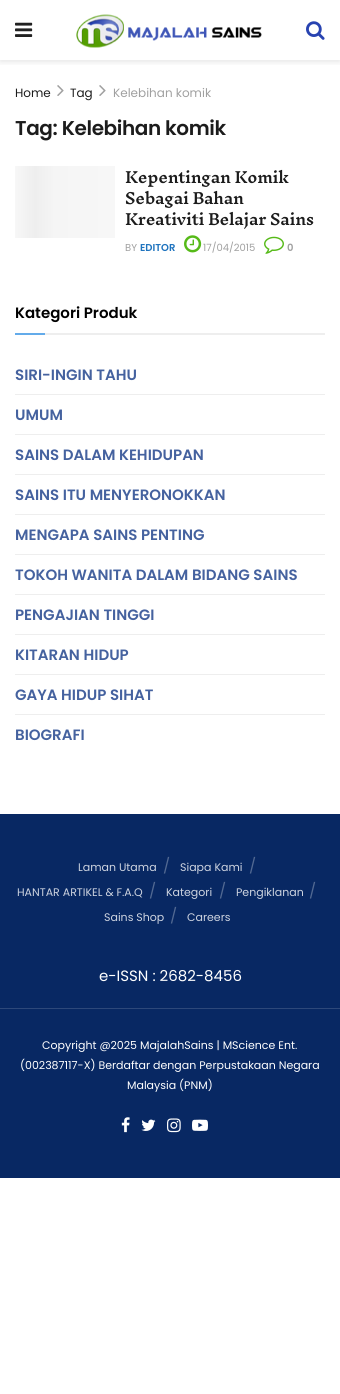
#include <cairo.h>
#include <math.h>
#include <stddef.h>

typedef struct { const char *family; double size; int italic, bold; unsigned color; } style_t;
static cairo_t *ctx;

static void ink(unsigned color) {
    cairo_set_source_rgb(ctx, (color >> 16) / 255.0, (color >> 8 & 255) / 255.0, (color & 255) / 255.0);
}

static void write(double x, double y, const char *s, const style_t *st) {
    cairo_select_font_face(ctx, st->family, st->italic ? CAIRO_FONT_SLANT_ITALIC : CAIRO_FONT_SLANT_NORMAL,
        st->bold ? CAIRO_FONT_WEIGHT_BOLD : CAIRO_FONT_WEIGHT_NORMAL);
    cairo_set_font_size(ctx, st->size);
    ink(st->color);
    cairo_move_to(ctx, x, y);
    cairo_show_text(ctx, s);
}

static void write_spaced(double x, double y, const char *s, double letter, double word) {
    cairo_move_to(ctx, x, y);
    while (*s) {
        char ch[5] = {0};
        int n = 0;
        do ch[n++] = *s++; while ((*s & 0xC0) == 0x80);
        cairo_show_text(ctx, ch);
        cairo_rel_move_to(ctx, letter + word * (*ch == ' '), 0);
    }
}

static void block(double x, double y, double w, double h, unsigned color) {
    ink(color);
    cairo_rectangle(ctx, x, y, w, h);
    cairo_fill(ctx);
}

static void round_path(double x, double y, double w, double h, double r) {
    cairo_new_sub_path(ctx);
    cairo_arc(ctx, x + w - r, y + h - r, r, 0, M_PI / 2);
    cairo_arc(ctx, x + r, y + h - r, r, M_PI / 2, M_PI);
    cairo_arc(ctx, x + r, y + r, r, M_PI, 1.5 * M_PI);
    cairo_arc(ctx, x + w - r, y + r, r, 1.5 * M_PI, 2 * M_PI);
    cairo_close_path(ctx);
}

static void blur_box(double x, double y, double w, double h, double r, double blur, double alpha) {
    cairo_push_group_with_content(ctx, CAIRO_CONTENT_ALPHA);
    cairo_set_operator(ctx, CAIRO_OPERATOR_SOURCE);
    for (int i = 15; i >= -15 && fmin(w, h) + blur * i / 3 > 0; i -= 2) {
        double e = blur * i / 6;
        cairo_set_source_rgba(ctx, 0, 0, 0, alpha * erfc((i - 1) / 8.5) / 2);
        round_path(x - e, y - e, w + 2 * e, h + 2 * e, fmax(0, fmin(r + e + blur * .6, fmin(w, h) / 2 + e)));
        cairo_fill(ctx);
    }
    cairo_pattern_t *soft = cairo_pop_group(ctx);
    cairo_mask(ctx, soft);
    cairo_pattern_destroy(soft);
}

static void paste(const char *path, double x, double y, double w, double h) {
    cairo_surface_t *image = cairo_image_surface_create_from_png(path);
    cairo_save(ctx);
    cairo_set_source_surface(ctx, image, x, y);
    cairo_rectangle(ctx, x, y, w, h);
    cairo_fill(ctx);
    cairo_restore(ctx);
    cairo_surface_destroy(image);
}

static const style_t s1 = {"Poppins", 12, 0, 0, 0x1c1c1c};
static const style_t s2 = {"Poppins", 12, 0, 0, 0xa0a0a0};
static const style_t s3 = {"Poppins", 10, 0, 0, 0xa0a0a0};
static const style_t s4 = {"Poppins SemiBold", 10, 0, 0, 0x1e73be};
static const style_t s5 = {"Poppins SemiBold", 10, 0, 0, 0xa0a0a0};
static const style_t s6 = {"Poppins SemiBold", 15, 0, 0, 0x000000};
static const style_t s7 = {"Poppins SemiBold", 15, 0, 0, 0x45629f};
static const style_t s8 = {"Poppins", 11, 0, 0, 0xced4e0};
static const style_t s9 = {"Poppins", 15, 0, 0, 0x526992};
static const style_t s10 = {"Poppins", 15, 0, 0, 0xffffff};
static const style_t s11 = {"Poppins", 11, 0, 0, 0xffffff};

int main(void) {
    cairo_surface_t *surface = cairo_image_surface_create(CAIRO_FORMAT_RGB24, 340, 1394);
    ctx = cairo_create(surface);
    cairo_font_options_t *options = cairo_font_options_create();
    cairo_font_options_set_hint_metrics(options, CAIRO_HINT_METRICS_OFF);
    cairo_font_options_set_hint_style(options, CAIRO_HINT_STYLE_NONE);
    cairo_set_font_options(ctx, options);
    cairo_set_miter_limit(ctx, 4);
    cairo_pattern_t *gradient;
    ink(0xffffff);
    cairo_paint(ctx);
    cairo_save(ctx);
    cairo_rectangle(ctx, 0, 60, 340, 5);
    cairo_clip(ctx);
    ink(0x000000);
    blur_box(0, 2, 340, 60, 0, 3, 0.1);
    cairo_restore(ctx);
    paste("pic1.png", 15, 22, 18, 15);
    paste("pic2.png", 76, 14, 186, 34);
    paste("pic3.png", 306, 21, 19, 19);
    write(15, 97, "Home", &s1);
    paste("pic4.png", 57, 85, 7, 11);
    write(70, 97, "Tag", &s1);
    paste("pic4.png", 99, 85, 7, 11);
    write(113, 97, "Kelebihan komik", &s2);
    cairo_select_font_face(ctx, "Poppins SemiBold", CAIRO_FONT_SLANT_NORMAL, CAIRO_FONT_WEIGHT_NORMAL);
    cairo_set_font_size(ctx, 20);
    ink(0x1c1c1c);
    write_spaced(15, 135, "Tag: Kelebihan komik", -0.4, 0);
    gradient = cairo_pattern_create_linear(15, 202, 115, 202);
    cairo_pattern_add_color_stop_rgba(gradient, 0, 0.969, 0.969, 0.969, 1);
    cairo_pattern_add_color_stop_rgba(gradient, 0.2, 0.933, 0.933, 0.933, 1);
    cairo_pattern_add_color_stop_rgba(gradient, 0.4, 0.961, 0.961, 0.961, 1);
    cairo_pattern_add_color_stop_rgba(gradient, 1, 0.969, 0.969, 0.969, 1);
    cairo_set_source(ctx, gradient);
    cairo_pattern_destroy(gradient);
    cairo_rectangle(ctx, 15, 166, 100, 72);
    cairo_fill(ctx);
    cairo_select_font_face(ctx, "Inknut Antiqua SemiBold", CAIRO_FONT_SLANT_NORMAL, CAIRO_FONT_WEIGHT_NORMAL);
    cairo_set_font_size(ctx, 15);
    ink(0x1c1c1c);
    write_spaced(125, 183, "Kepentingan Komik", -0.3, 0);
    write_spaced(125, 204, "Sebagai Bahan", -0.3, 0);
    write_spaced(125, 225, "Kreativiti Belajar Sains", -0.3, 0);
    write(125, 251, "BY", &s3);
    write(140, 251, "EDITOR", &s4);
    paste("pic5.png", 184, 235, 18, 18);
    write(203, 251, "17/04/2015", &s3);
    paste("pic6.png", 264, 236, 20, 18);
    write(287, 251, "0", &s5);
    block(45, 333, 280, 2, 0xeeeeee);
    write(15, 318, "Kategori Produk", &s6);
    block(15, 333, 30, 2, 0x63abea);
    write(15, 380, "SIRI-INGIN TAHU", &s7);
    block(15, 394, 310, 1, 0xeeeeee);
    write(15, 420, "UMUM", &s7);
    block(15, 434, 310, 1, 0xeeeeee);
    write(15, 460, "SAINS DALAM KEHIDUPAN", &s7);
    block(15, 474, 310, 1, 0xeeeeee);
    write(15, 500, "SAINS ITU MENYERONOKKAN", &s7);
    block(15, 514, 310, 1, 0xeeeeee);
    write(15, 540, "MENGAPA SAINS PENTING", &s7);
    block(15, 554, 310, 1, 0xeeeeee);
    write(15, 580, "TOKOH WANITA DALAM BIDANG SAINS", &s7);
    block(15, 594, 310, 1, 0xeeeeee);
    write(15, 620, "PENGAJIAN TINGGI", &s7);
    block(15, 634, 310, 1, 0xeeeeee);
    write(15, 660, "KITARAN HIDUP", &s7);
    block(15, 674, 310, 1, 0xeeeeee);
    write(15, 700, "GAYA HIDUP SIHAT", &s7);
    block(15, 714, 310, 1, 0xeeeeee);
    write(15, 740, "BIOGRAFI", &s7);
    block(0, 814, 340, 364, 0x082863);
    write(78, 871, "Laman Utama", &s8);
    write(163, 871, "/", &s9);
    write(180, 871, "Siapa Kami", &s8);
    write(249, 871, "/", &s9);
    write(17, 896, "HANTAR ARTIKEL & F.A.Q", &s8);
    write(149, 896, "/", &s9);
    write(166, 896, "Kategori", &s8);
    write(219, 896, "/", &s9);
    write(236, 896, "Pengiklanan", &s8);
    write(309, 896, "/", &s9);
    write(104, 921, "Sains Shop", &s8);
    write(170, 921, "/", &s9);
    write(187, 921, "Careers", &s8);
    write(99, 981, "e-ISSN : 2682-8456", &s10);
    block(0, 1008, 340, 1, 0x2d487a);
    write(42, 1049, "Copyright @2025 MajalahSains | MScience Ent.", &s11);
    write(20, 1069, "(002387117-X) Berdaftar dengan Perpustakaan Negara", &s11);
    write(127, 1089, "Malaysia (PNM)", &s11);
    paste("pic7.png", 121, 1117, 9, 16);
    paste("pic8.png", 141, 1119, 15, 12);
    paste("pic9.png", 167, 1118, 14, 15);
    paste("pic10.png", 192, 1119, 16, 12);
    cairo_surface_write_to_png(surface, "screenshot.png");
    cairo_font_options_destroy(options);
    cairo_destroy(ctx);
    cairo_surface_destroy(surface);
    return 0;
}
